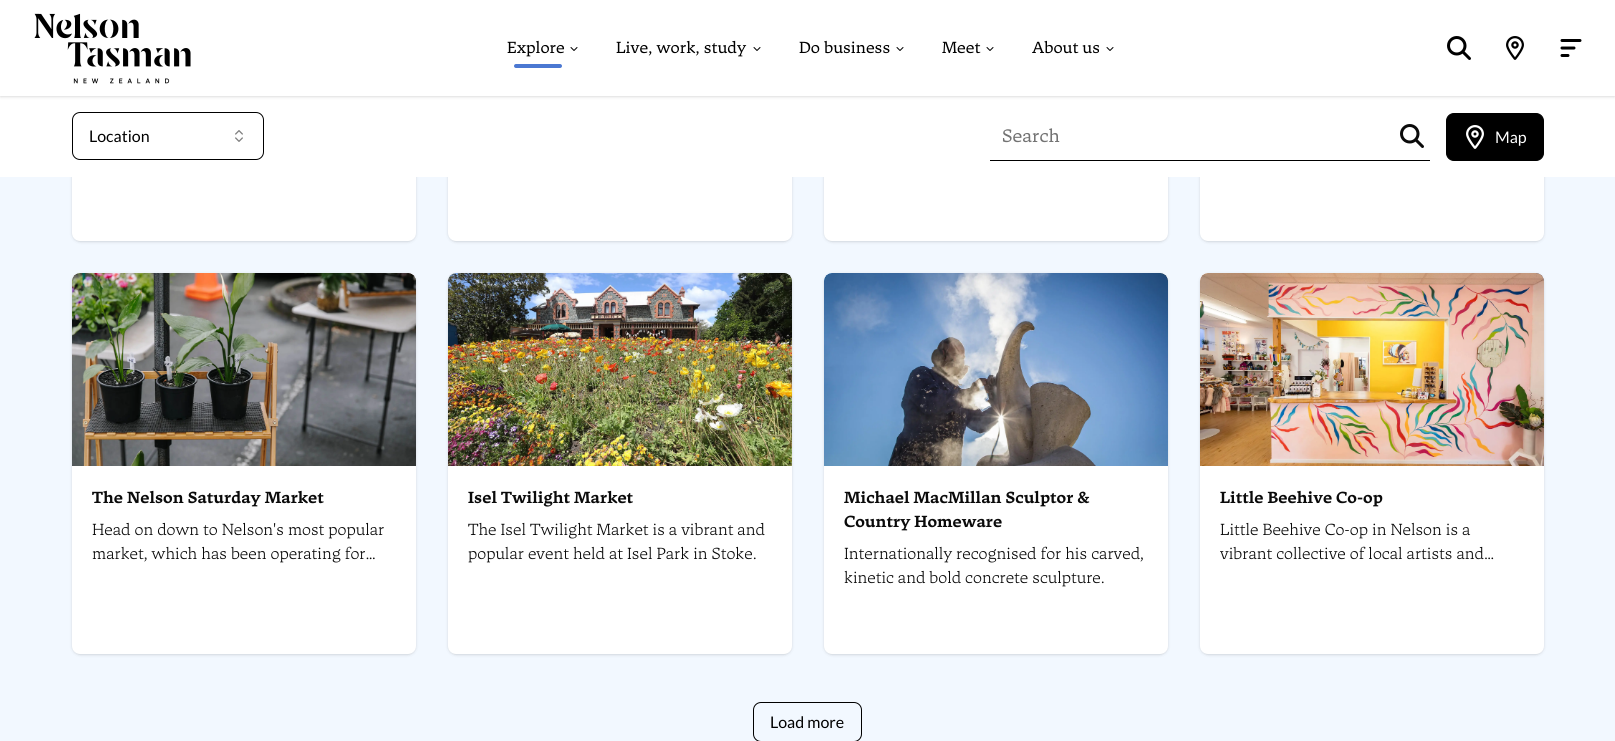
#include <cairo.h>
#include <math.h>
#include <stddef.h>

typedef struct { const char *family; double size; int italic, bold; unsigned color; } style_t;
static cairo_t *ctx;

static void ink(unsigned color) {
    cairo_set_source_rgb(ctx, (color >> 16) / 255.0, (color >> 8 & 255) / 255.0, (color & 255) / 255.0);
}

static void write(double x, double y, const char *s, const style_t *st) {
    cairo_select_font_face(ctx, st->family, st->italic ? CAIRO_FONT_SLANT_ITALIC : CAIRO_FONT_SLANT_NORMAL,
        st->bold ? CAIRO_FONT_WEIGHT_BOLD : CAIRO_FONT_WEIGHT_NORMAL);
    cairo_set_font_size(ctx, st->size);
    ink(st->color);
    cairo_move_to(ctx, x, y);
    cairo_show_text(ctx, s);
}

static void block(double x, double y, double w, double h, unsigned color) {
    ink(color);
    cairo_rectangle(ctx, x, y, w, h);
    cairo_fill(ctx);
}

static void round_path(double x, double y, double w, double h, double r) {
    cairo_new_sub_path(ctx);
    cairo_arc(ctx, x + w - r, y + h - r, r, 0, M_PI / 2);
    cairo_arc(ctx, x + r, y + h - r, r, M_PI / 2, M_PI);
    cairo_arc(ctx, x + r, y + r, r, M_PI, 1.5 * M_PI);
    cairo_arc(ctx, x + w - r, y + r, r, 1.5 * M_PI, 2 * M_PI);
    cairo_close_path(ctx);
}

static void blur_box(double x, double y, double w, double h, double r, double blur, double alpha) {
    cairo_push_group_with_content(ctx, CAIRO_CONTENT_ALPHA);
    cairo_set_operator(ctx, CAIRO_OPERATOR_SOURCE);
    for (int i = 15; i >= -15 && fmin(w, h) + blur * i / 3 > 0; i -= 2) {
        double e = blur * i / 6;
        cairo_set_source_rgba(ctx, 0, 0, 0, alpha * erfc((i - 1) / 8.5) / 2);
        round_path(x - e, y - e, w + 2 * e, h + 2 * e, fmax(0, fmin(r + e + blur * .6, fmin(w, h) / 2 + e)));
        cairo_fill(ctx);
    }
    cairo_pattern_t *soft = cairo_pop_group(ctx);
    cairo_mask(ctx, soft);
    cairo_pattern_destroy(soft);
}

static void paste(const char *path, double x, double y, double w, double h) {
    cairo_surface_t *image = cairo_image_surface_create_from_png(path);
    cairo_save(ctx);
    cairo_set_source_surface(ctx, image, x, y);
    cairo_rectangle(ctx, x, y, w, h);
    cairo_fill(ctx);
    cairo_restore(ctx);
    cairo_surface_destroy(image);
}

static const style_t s1 = {"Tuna", 16, 0, 0, 0x000000};
static const style_t s2 = {"Lato", 16, 0, 0, 0x000000};
static const style_t s3 = {"Tuna", 18, 0, 0, 0x737373};
static const style_t s4 = {"Lato", 16, 0, 0, 0xffffff};
static const style_t s5 = {"Tuna", 16, 0, 1, 0x0a0a0a};
static const style_t s6 = {"Tuna Light", 16, 0, 0, 0x0a0a0a};

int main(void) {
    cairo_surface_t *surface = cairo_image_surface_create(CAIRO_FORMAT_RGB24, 1615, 741);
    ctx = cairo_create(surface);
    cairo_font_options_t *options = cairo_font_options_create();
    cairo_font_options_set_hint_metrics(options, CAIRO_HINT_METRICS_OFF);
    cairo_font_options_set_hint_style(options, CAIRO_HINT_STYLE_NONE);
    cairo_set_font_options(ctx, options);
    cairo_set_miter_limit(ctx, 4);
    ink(0xf2f8ff);
    cairo_paint(ctx);
    ink(0x000000);
    blur_box(73, -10, 342, 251, 7, 1, 0.1);
    blur_box(72, -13, 344, 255, 8, 1.5, 0.1);
    ink(0xffffff);
    round_path(72, -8, 344, 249, 8);
    cairo_fill(ctx);
    ink(0x000000);
    blur_box(449, -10, 342, 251, 7, 1, 0.1);
    blur_box(448, -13, 344, 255, 8, 1.5, 0.1);
    ink(0xffffff);
    round_path(448, -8, 344, 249, 8);
    cairo_fill(ctx);
    ink(0x000000);
    blur_box(825, -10, 342, 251, 7, 1, 0.1);
    blur_box(824, -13, 344, 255, 8, 1.5, 0.1);
    ink(0xffffff);
    round_path(824, -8, 344, 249, 8);
    cairo_fill(ctx);
    ink(0x000000);
    blur_box(1201, -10, 342, 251, 7, 1, 0.1);
    blur_box(1200, -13, 344, 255, 8, 1.5, 0.1);
    ink(0xffffff);
    round_path(1200, -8, 344, 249, 8);
    cairo_fill(ctx);
    block(0, 96, 1615, 81, 0xffffff);
    ink(0x000000);
    blur_box(1, 2, 1613, 94, 0, 1, 0.1);
    blur_box(0, 1, 1615, 96, 0, 1.5, 0.1);
    block(0, 0, 1615, 96, 0xffffff);
    paste("pic1.png", 34, 13, 157, 71);
    write(507, 53, "Explore", &s1);
    cairo_new_path(ctx);
    cairo_move_to(ctx, 571, 47.5);
    cairo_line_to(ctx, 574, 50.5);
    cairo_line_to(ctx, 577, 47.5);
    cairo_set_line_width(ctx, 1);
    cairo_set_line_cap(ctx, CAIRO_LINE_CAP_ROUND);
    cairo_set_line_join(ctx, CAIRO_LINE_JOIN_ROUND);
    cairo_stroke(ctx);
    ink(0x4b78d2);
    round_path(514, 64, 48, 4, 2);
    cairo_fill(ctx);
    write(616, 53, "Live, work, study", &s1);
    cairo_new_path(ctx);
    cairo_move_to(ctx, 754, 47.5);
    cairo_line_to(ctx, 757, 50.5);
    cairo_line_to(ctx, 760, 47.5);
    cairo_stroke(ctx);
    write(799, 53, "Do business", &s1);
    cairo_new_path(ctx);
    cairo_move_to(ctx, 897, 47.5);
    cairo_line_to(ctx, 900, 50.5);
    cairo_line_to(ctx, 903, 47.5);
    cairo_stroke(ctx);
    write(942, 53, "Meet", &s1);
    cairo_new_path(ctx);
    cairo_move_to(ctx, 987, 47.5);
    cairo_line_to(ctx, 990, 50.5);
    cairo_line_to(ctx, 993, 47.5);
    cairo_stroke(ctx);
    write(1032, 53, "About us", &s1);
    cairo_new_path(ctx);
    cairo_move_to(ctx, 1107, 47.5);
    cairo_line_to(ctx, 1110, 50.5);
    cairo_line_to(ctx, 1113, 47.5);
    cairo_stroke(ctx);
    paste("pic2.png", 1447, 36, 24, 24);
    paste("pic3.png", 1506, 36, 18, 24);
    paste("pic4.png", 1560, 39, 22, 18);
    round_path(72.5, 112.5, 191, 47, 7.5);
    cairo_set_line_cap(ctx, CAIRO_LINE_CAP_BUTT);
    cairo_set_line_join(ctx, CAIRO_LINE_JOIN_MITER);
    cairo_stroke(ctx);
    write(89, 142, "Location", &s2);
    paste("pic5.png", 235, 130, 8, 12);
    block(990, 160, 440, 1, 0x000000);
    write(1002, 142, "Search", &s3);
    paste("pic6.png", 1400, 124, 24, 24);
    ink(0x000000);
    round_path(1446.5, 113.5, 97, 47, 7.5);
    cairo_fill_preserve(ctx);
    cairo_stroke(ctx);
    paste("pic7.png", 1466, 125, 18, 24);
    write(1495, 143, "Map", &s4);
    ink(0x000000);
    blur_box(73, 275, 342, 379, 7, 1, 0.1);
    blur_box(72, 274, 344, 381, 8, 1.5, 0.1);
    ink(0xffffff);
    round_path(72, 273, 344, 381, 8);
    cairo_fill(ctx);
    ink(0xf5f5f5);
    cairo_new_path(ctx);
    cairo_move_to(ctx, 80, 273);
    cairo_line_to(ctx, 408, 273);
    cairo_curve_to(ctx, 412.5, 273, 416, 276.5, 416, 281);
    cairo_line_to(ctx, 416, 466);
    cairo_line_to(ctx, 72, 466);
    cairo_line_to(ctx, 72, 281);
    cairo_curve_to(ctx, 72, 276.5, 75.5, 273, 80, 273);
    cairo_close_path(ctx);
    cairo_fill(ctx);
    paste("pic8.png", 72, 273, 344, 8);
    paste("pic9.png", 72, 273, 344, 193);
    write(92, 503, "The Nelson Saturday Market", &s5);
    write(92, 535, "Head on down to Nelson's most popular", &s6);
    write(92, 559, "market, which has been operating for…", &s6);
    ink(0x000000);
    blur_box(449, 275, 342, 379, 7, 1, 0.1);
    blur_box(448, 274, 344, 381, 8, 1.5, 0.1);
    ink(0xffffff);
    round_path(448, 273, 344, 381, 8);
    cairo_fill(ctx);
    ink(0xf5f5f5);
    cairo_new_path(ctx);
    cairo_move_to(ctx, 456, 273);
    cairo_line_to(ctx, 784, 273);
    cairo_curve_to(ctx, 788.5, 273, 792, 276.5, 792, 281);
    cairo_line_to(ctx, 792, 466);
    cairo_line_to(ctx, 448, 466);
    cairo_line_to(ctx, 448, 281);
    cairo_curve_to(ctx, 448, 276.5, 451.5, 273, 456, 273);
    cairo_close_path(ctx);
    cairo_fill(ctx);
    paste("pic10.png", 448, 273, 344, 8);
    paste("pic11.png", 448, 273, 344, 193);
    write(468, 503, "Isel Twilight Market", &s5);
    cairo_save(ctx);
    cairo_rectangle(ctx, 468, 518, 304, 48);
    cairo_clip(ctx);
    write(468, 535, "The Isel Twilight Market is a vibrant and", &s6);
    cairo_restore(ctx);
    write(468, 559, "popular event held at Isel Park in Stoke.", &s6);
    ink(0x000000);
    blur_box(825, 275, 342, 379, 7, 1, 0.1);
    blur_box(824, 274, 344, 381, 8, 1.5, 0.1);
    ink(0xffffff);
    round_path(824, 273, 344, 381, 8);
    cairo_fill(ctx);
    ink(0xf5f5f5);
    cairo_new_path(ctx);
    cairo_move_to(ctx, 832, 273);
    cairo_line_to(ctx, 1160, 273);
    cairo_curve_to(ctx, 1164.5, 273, 1168, 276.5, 1168, 281);
    cairo_line_to(ctx, 1168, 466);
    cairo_line_to(ctx, 824, 466);
    cairo_line_to(ctx, 824, 281);
    cairo_curve_to(ctx, 824, 276.5, 827.5, 273, 832, 273);
    cairo_close_path(ctx);
    cairo_fill(ctx);
    paste("pic12.png", 824, 273, 344, 8);
    paste("pic13.png", 824, 273, 344, 193);
    write(844, 503, "Michael MacMillan Sculptor &", &s5);
    write(844, 527, "Country Homeware", &s5);
    write(844, 559, "Internationally recognised for his carved,", &s6);
    write(844, 583, "kinetic and bold concrete sculpture.", &s6);
    ink(0x000000);
    blur_box(1201, 275, 342, 379, 7, 1, 0.1);
    blur_box(1200, 274, 344, 381, 8, 1.5, 0.1);
    ink(0xffffff);
    round_path(1200, 273, 344, 381, 8);
    cairo_fill(ctx);
    ink(0xf5f5f5);
    cairo_new_path(ctx);
    cairo_move_to(ctx, 1208, 273);
    cairo_line_to(ctx, 1536, 273);
    cairo_curve_to(ctx, 1540.5, 273, 1544, 276.5, 1544, 281);
    cairo_line_to(ctx, 1544, 466);
    cairo_line_to(ctx, 1200, 466);
    cairo_line_to(ctx, 1200, 281);
    cairo_curve_to(ctx, 1200, 276.5, 1203.5, 273, 1208, 273);
    cairo_close_path(ctx);
    cairo_fill(ctx);
    paste("pic14.png", 1200, 273, 344, 8);
    paste("pic15.png", 1200, 273, 344, 193);
    write(1220, 503, "Little Beehive Co-op", &s5);
    write(1220, 535, "Little Beehive Co-op in Nelson is a", &s6);
    write(1220, 559, "vibrant collective of local artists and…", &s6);
    round_path(753.5, 702.5, 108, 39, 7.5);
    ink(0x000000);
    cairo_stroke(ctx);
    write(770, 728, "Load more", &s2);
    cairo_surface_write_to_png(surface, "screenshot.png");
    cairo_font_options_destroy(options);
    cairo_destroy(ctx);
    cairo_surface_destroy(surface);
    return 0;
}
